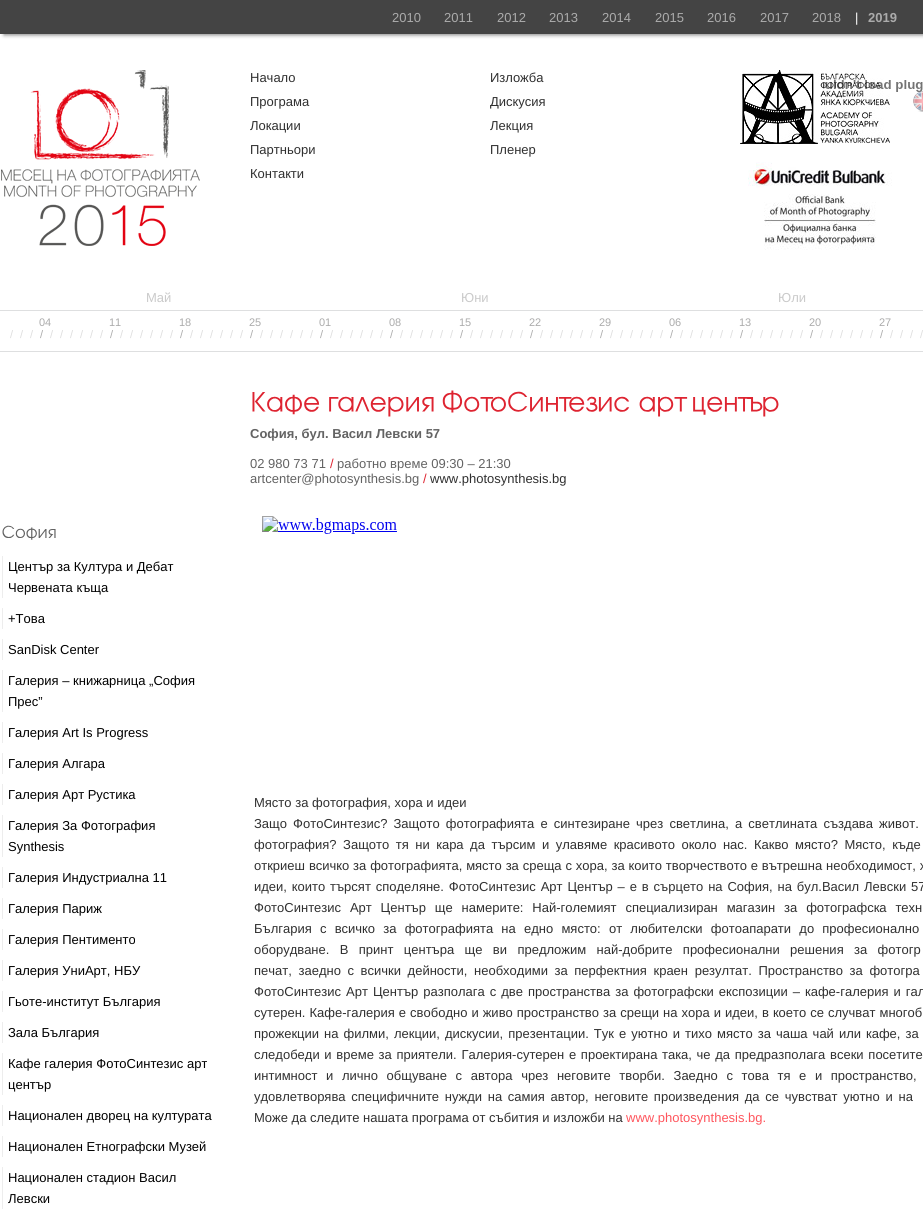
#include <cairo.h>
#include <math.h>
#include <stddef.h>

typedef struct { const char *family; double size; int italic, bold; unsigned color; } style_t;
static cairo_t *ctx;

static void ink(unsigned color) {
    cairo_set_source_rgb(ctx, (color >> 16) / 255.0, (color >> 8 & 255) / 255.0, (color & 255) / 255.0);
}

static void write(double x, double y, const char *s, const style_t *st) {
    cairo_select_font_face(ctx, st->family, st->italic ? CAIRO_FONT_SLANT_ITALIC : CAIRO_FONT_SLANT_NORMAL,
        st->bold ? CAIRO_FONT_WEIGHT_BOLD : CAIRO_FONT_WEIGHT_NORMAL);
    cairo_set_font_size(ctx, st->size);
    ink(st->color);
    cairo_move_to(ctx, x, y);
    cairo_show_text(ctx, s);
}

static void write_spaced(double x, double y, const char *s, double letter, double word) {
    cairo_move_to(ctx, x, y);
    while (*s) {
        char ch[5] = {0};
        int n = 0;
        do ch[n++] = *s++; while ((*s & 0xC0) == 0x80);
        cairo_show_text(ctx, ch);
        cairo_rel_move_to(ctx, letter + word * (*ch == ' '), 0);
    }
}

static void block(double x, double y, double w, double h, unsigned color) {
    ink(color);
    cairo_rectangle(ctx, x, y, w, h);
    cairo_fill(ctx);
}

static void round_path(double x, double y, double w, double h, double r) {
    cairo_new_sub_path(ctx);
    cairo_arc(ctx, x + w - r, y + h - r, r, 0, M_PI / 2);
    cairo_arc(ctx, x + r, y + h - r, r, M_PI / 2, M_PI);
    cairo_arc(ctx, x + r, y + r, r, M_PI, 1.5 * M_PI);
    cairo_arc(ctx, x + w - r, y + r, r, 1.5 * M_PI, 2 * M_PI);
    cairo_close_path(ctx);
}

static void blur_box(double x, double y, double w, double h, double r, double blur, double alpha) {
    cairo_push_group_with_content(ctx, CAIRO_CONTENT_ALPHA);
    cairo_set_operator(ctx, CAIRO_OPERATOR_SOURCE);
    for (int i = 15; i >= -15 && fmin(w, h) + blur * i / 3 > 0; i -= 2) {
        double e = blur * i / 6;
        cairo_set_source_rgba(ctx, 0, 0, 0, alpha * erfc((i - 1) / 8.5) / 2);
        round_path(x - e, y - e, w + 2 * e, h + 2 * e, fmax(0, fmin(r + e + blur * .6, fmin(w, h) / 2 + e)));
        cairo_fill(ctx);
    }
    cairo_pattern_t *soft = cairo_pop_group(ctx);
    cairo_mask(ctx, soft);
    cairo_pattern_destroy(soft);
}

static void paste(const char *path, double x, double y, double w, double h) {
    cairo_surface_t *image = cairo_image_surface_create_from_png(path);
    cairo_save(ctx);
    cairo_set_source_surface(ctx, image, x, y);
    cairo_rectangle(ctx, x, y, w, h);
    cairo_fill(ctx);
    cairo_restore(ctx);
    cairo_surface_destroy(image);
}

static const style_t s1 = {"Liberation Sans", 13, 0, 0, 0xababab};
static const style_t s2 = {"Liberation Sans", 13, 0, 0, 0xffffff};
static const style_t s3 = {"Liberation Sans", 13, 0, 1, 0xababab};
static const style_t s4 = {"Liberation Sans", 13, 0, 0, 0x303030};
static const style_t s5 = {"Liberation Sans", 13, 0, 0, 0xcacaca};
static const style_t s6 = {"Liberation Sans", 11, 0, 0, 0xdedede};
static const style_t s7 = {"Liberation Sans", 11, 0, 0, 0xababab};
static const style_t s8 = {"Liberation Sans", 13, 0, 1, 0x636363};
static const style_t s9 = {"Liberation Sans", 13, 0, 0, 0x636363};
static const style_t s10 = {"Liberation Sans", 13, 0, 0, 0xde2431};
static const style_t s11 = {"Liberation Sans", 13, 0, 0, 0x000000};
static const style_t s12 = {"Liberation Sans", 13, 0, 0, 0xff555d};

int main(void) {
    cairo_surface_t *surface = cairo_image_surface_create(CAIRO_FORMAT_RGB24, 923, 1209);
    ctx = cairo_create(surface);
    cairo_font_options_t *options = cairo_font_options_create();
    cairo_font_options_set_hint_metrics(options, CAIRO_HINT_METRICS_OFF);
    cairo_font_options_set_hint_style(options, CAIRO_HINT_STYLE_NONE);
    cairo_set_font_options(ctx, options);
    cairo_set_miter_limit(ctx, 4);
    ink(0xffffff);
    cairo_paint(ctx);
    ink(0x808080);
    blur_box(4, 9, 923, 26, 0, 2, 1);
    block(0, 0, 923, 34, 0x444444);
    write(392, 22, "2010", &s1);
    write(444, 22, "2011", &s1);
    write(497, 22, "2012", &s1);
    write(549, 22, "2013", &s1);
    write(602, 22, "2014", &s1);
    write(655, 22, "2015", &s1);
    write(707, 22, "2016", &s1);
    write(760, 22, "2017", &s1);
    write(812, 22, "2018", &s1);
    write(855, 22, "|", &s2);
    write(868, 22, "2019", &s3);
    block(0, 310, 923, 1, 0xdedfe0);
    paste("pic1.png", 1, 70, 199, 176);
    write(250, 82, "Начало", &s4);
    write(250, 106, "Програма", &s4);
    write(250, 130, "Локации", &s4);
    write(250, 154, "Партньори", &s4);
    write(250, 178, "Контакти", &s4);
    write(490, 82, "Изложба", &s4);
    write(490, 106, "Дискусия", &s4);
    write(490, 130, "Лекция", &s4);
    write(490, 154, "Пленер", &s4);
    paste("pic2.png", 740, 70, 150, 74);
    paste("pic3.png", 913, 91, 10, 21);
    paste("pic4.png", 748, 162, 144, 88);
    write(146, 302, "Май", &s5);
    write(461, 302, "Юни", &s5);
    write(778, 302, "Юли", &s5);
    block(0, 351, 923, 1, 0xdedfe0);
    write(10, 338, "/", &s6);
    write(20, 338, "/", &s6);
    write(30, 338, "/", &s6);
    write(39, 326, "04", &s7);
    write(40, 338, "/", &s7);
    write(50, 338, "/", &s6);
    write(60, 338, "/", &s6);
    write(70, 338, "/", &s6);
    write(80, 338, "/", &s6);
    write(90, 338, "/", &s6);
    write(100, 338, "/", &s6);
    write(109, 326, "11", &s7);
    write(110, 338, "/", &s7);
    write(120, 338, "/", &s6);
    write(130, 338, "/", &s6);
    write(140, 338, "/", &s6);
    write(150, 338, "/", &s6);
    write(160, 338, "/", &s6);
    write(170, 338, "/", &s6);
    write(179, 326, "18", &s7);
    write(180, 338, "/", &s7);
    write(190, 338, "/", &s6);
    write(200, 338, "/", &s6);
    write(210, 338, "/", &s6);
    write(220, 338, "/", &s6);
    write(230, 338, "/", &s6);
    write(240, 338, "/", &s6);
    write(249, 326, "25", &s7);
    write(250, 338, "/", &s7);
    write(260, 338, "/", &s6);
    write(270, 338, "/", &s6);
    write(280, 338, "/", &s6);
    write(290, 338, "/", &s6);
    write(300, 338, "/", &s6);
    write(310, 338, "/", &s6);
    write(319, 326, "01", &s7);
    write(320, 338, "/", &s7);
    write(330, 338, "/", &s6);
    write(340, 338, "/", &s6);
    write(350, 338, "/", &s6);
    write(360, 338, "/", &s6);
    write(370, 338, "/", &s6);
    write(380, 338, "/", &s6);
    write(389, 326, "08", &s7);
    write(390, 338, "/", &s7);
    write(400, 338, "/", &s6);
    write(410, 338, "/", &s6);
    write(420, 338, "/", &s6);
    write(430, 338, "/", &s6);
    write(440, 338, "/", &s6);
    write(450, 338, "/", &s6);
    write(459, 326, "15", &s7);
    write(460, 338, "/", &s7);
    write(470, 338, "/", &s6);
    write(480, 338, "/", &s6);
    write(490, 338, "/", &s6);
    write(500, 338, "/", &s6);
    write(510, 338, "/", &s6);
    write(520, 338, "/", &s6);
    write(529, 326, "22", &s7);
    write(530, 338, "/", &s7);
    write(540, 338, "/", &s6);
    write(550, 338, "/", &s6);
    write(560, 338, "/", &s6);
    write(570, 338, "/", &s6);
    write(580, 338, "/", &s6);
    write(590, 338, "/", &s6);
    write(599, 326, "29", &s7);
    write(600, 338, "/", &s7);
    write(610, 338, "/", &s6);
    write(620, 338, "/", &s6);
    write(630, 338, "/", &s6);
    write(640, 338, "/", &s6);
    write(650, 338, "/", &s6);
    write(660, 338, "/", &s6);
    write(669, 326, "06", &s7);
    write(670, 338, "/", &s7);
    write(680, 338, "/", &s6);
    write(690, 338, "/", &s6);
    write(700, 338, "/", &s6);
    write(710, 338, "/", &s6);
    write(720, 338, "/", &s6);
    write(730, 338, "/", &s6);
    write(739, 326, "13", &s7);
    write(740, 338, "/", &s7);
    write(750, 338, "/", &s6);
    write(760, 338, "/", &s6);
    write(770, 338, "/", &s6);
    write(780, 338, "/", &s6);
    write(790, 338, "/", &s6);
    write(800, 338, "/", &s6);
    write(809, 326, "20", &s7);
    write(810, 338, "/", &s7);
    write(820, 338, "/", &s6);
    write(830, 338, "/", &s6);
    write(840, 338, "/", &s6);
    write(850, 338, "/", &s6);
    write(860, 338, "/", &s6);
    write(870, 338, "/", &s6);
    write(879, 326, "27", &s7);
    write(880, 338, "/", &s7);
    write(890, 338, "/", &s6);
    write(900, 338, "/", &s6);
    write(910, 338, "/", &s6);
    write(920, 338, "/", &s6);
    paste("pic5.png", 252, 392, 68, 23);
    paste("pic6.png", 329, 396, 105, 21);
    paste("pic7.png", 442, 390, 188, 23);
    paste("pic8.png", 639, 396, 49, 21);
    paste("pic9.png", 693, 396, 86, 21);
    write(250, 438, "София, бул. Васил Левски 57", &s8);
    write(250, 468, "02 980 73 71", &s9);
    write(330, 468, "/", &s10);
    write(337, 468, "работно време 09:30 – 21:30", &s9);
    write(250, 483, "artcenter@photosynthesis.bg", &s9);
    write(423, 483, "/", &s10);
    write(430, 483, "www.photosynthesis.bg", &s4);
    paste("pic10.png", 2, 525, 54, 15);
    block(2, 556, 1, 42, 0xededed);
    write(8, 571, "Център за Култура и Дебат", &s11);
    write(8, 592, "Червената къща", &s11);
    block(2, 608, 1, 21, 0xededed);
    write(8, 623, "+Това", &s11);
    block(2, 639, 1, 21, 0xededed);
    write(8, 654, "SanDisk Center", &s11);
    block(2, 670, 1, 42, 0xededed);
    write(8, 685, "Галерия – книжарница „София", &s11);
    write(8, 706, "Прес”", &s11);
    block(2, 722, 1, 21, 0xededed);
    write(8, 737, "Галерия Art Is Progress", &s11);
    block(2, 753, 1, 21, 0xededed);
    write(8, 768, "Галерия Алгара", &s11);
    block(2, 784, 1, 21, 0xededed);
    write(8, 799, "Галерия Арт Рустика", &s11);
    block(2, 815, 1, 42, 0xededed);
    write(8, 830, "Галерия За Фотография", &s11);
    write(8, 851, "Synthesis", &s11);
    block(2, 867, 1, 21, 0xededed);
    write(8, 882, "Галерия Индустриална 11", &s11);
    block(2, 898, 1, 21, 0xededed);
    write(8, 913, "Галерия Париж", &s11);
    block(2, 929, 1, 21, 0xededed);
    write(8, 944, "Галерия Пентименто", &s11);
    block(2, 960, 1, 21, 0xededed);
    write(8, 975, "Галерия УниАрт, НБУ", &s11);
    block(2, 991, 1, 21, 0xededed);
    write(8, 1006, "Гьоте-институт България", &s11);
    block(2, 1022, 1, 21, 0xededed);
    write(8, 1037, "Зала България", &s11);
    block(2, 1053, 1, 42, 0xededed);
    write(8, 1068, "Кафе галерия ФотоСинтезис арт", &s11);
    write(8, 1089, "център", &s11);
    block(2, 1105, 1, 21, 0xededed);
    write(8, 1120, "Национален дворец на културата", &s11);
    block(2, 1136, 1, 21, 0xededed);
    write(8, 1151, "Национален Етнографски Музей", &s11);
    block(2, 1167, 1, 42, 0xededed);
    write(8, 1182, "Национален стадион Васил", &s11);
    write(8, 1203, "Левски", &s11);
    paste("pic11.png", 262, 516, 135, 18);
    write(254, 807, "Mясто за фотография, хора и идеи", &s4);
    write_spaced(254, 828, "Защо ФотоСинтезис? Защото фотографията е синтезиране чрез светлина, а светлината създава живот.", 0, 2.5);
    write_spaced(254, 849, "фотография? Защото тя ни кара да търсим и улавяме красивото около нас. Какво място? Място, къде", 0, 2.9);
    write_spaced(254, 870, "откриеш всичко за фотографията, място за среща с хора, за които творчеството е вътрешна необходимост, х", 0, 0.25);
    write_spaced(254, 891, "идеи, които търсят споделяне. ФотоСинтезис Арт Център – e в сърцето на София, на бул.Васил Левски 57", 0, 1.25);
    write_spaced(254, 912, "ФотоСинтезис Арт Център ще намерите: Най-големият специализиран магазин за фотографска техн", 0, 5.25);
    write_spaced(254, 933, "България с всичко за фотографията на едно място: от любителски фотоапарати до професионално", 0, 4.6);
    write_spaced(254, 954, "оборудване. В принт центъра ще ви предложим най-добрите професионални решения за фотогр", 0, 6.75);
    write_spaced(254, 975, "печат, заедно с всички дейности, необходими за перфектния краен резултат. Пространство за фотогра", 0, 3);
    write_spaced(254, 996, "ФотоСинтезис Арт Център разполага с две пространства за фотографски експозиции – кафе-галерия и гал", 0, 1.4);
    write_spaced(254, 1017, "сутерен. Кафе-галерия е свободно и живо пространство за срещи на хора и идеи, в което се случват многоб", 0, 0.4);
    write_spaced(254, 1038, "прожекции на филми, лекции, дискусии, презентации. Тук е уютно и тихо място за чаша чай или кафе, за", 0, 1.4);
    write_spaced(254, 1059, "следобеди и време за приятели. Галерия-сутерен е проектирана така, че да предразполага всеки посетите", 0, 1.1);
    write_spaced(254, 1080, "интимност и лично общуване с автора чрез неговите творби. Заедно с това тя е и пространство,", 0, 5);
    write_spaced(254, 1101, "удовлетворява специфичните нужди на самия автор, неговите произведения да се чувстват уютно и на", 0, 2.1);
    write(254, 1122, "Mоже да следите нашата програма от събития и изложби на", &s4);
    write(626, 1122, "www.photosynthesis.bg.", &s12);
    paste("pic12.png", 823, 75, 100, 18);
    cairo_surface_write_to_png(surface, "screenshot.png");
    cairo_font_options_destroy(options);
    cairo_destroy(ctx);
    cairo_surface_destroy(surface);
    return 0;
}
